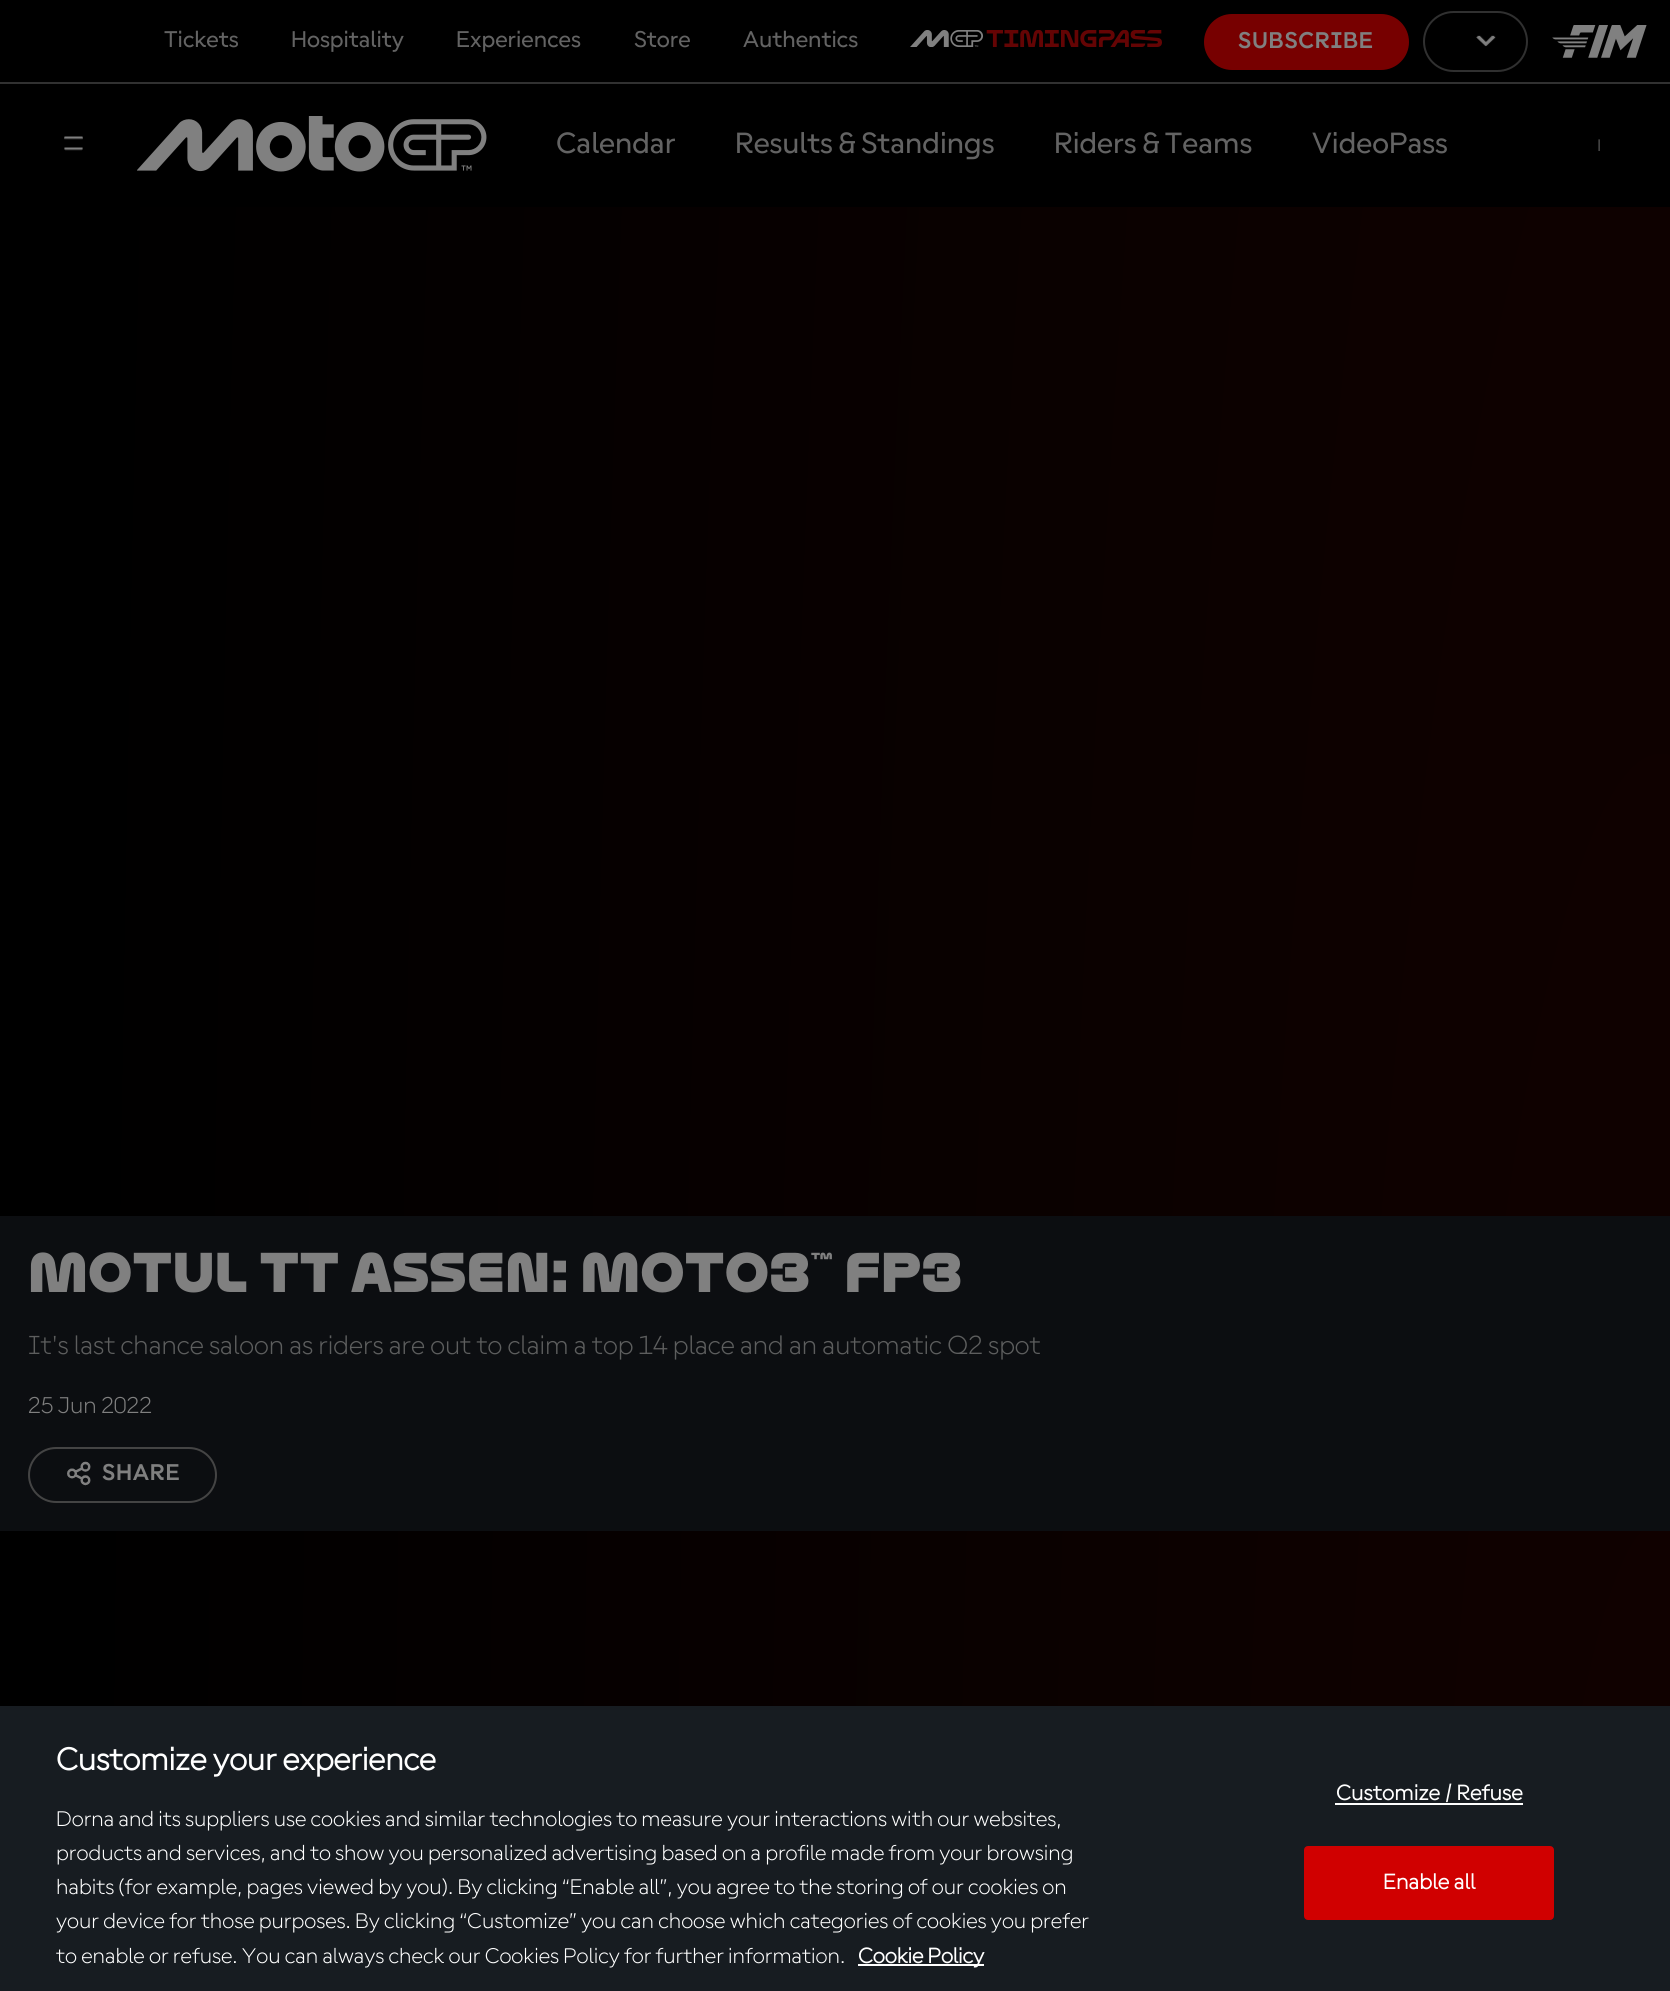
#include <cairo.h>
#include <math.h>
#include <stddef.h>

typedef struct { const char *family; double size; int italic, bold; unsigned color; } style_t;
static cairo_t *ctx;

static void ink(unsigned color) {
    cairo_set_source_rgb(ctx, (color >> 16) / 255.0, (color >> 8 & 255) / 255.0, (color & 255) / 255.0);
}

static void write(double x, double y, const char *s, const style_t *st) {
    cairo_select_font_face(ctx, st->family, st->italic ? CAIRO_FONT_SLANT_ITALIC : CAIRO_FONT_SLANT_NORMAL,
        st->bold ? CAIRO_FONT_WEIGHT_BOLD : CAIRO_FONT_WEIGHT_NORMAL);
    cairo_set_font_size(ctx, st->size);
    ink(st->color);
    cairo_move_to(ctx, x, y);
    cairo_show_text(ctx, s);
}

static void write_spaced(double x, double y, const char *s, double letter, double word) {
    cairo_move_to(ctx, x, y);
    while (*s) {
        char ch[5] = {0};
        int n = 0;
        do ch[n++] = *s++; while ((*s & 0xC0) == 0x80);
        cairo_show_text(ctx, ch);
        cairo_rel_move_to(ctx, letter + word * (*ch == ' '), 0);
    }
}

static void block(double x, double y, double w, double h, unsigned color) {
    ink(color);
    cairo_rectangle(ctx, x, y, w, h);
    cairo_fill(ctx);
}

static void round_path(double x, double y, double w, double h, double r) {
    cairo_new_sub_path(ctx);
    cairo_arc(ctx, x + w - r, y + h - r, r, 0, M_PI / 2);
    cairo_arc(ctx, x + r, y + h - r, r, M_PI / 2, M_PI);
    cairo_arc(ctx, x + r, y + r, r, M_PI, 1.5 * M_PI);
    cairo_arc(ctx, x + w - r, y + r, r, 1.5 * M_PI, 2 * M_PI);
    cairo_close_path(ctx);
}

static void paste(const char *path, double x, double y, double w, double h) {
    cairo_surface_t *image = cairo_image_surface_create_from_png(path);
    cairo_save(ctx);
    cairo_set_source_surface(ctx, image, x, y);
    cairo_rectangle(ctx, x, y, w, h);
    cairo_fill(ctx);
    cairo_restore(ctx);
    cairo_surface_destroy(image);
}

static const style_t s1 = {"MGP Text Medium", 24.5, 0, 0, 0x636363};
static const style_t s2 = {"MGP Text Medium", 31.5, 0, 0, 0x636363};
static const style_t s3 = {"MGP Text Light", 18, 0, 0, 0x808080};
static const style_t s4 = {"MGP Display", 49, 0, 1, 0x808080};
static const style_t s5 = {"MGP Text Light", 28, 0, 0, 0x5d5e5e};
static const style_t s6 = {"MGP Text Light", 24.5, 0, 0, 0x808080};
static const style_t s7 = {"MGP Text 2", 33.6, 0, 1, 0xffffff};
static const style_t s8 = {"MGP Text Light", 22.75, 0, 0, 0xffffff};
static const style_t s9 = {"MGP Text 2", 22.75, 0, 1, 0xffffff};

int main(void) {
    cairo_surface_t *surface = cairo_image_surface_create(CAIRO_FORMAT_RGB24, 1670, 1991);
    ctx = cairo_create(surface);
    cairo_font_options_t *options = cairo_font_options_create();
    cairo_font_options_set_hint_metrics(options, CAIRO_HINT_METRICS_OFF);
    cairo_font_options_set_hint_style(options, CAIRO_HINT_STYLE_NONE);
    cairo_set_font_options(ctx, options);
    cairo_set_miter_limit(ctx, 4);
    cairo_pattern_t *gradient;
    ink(0xffffff);
    cairo_paint(ctx);
    block(0, 0, 1670, 82, 0x000000);
    block(0, 82, 1670, 2, 0x313131);
    write(164, 47, "Tickets", &s1);
    write(291, 47, "Hospitality", &s1);
    write(456, 47, "Experiences", &s1);
    write(634, 47, "Store", &s1);
    write(743, 47, "Authentics", &s1);
    paste("pic1.png", 910, 30, 252, 17);
    ink(0x770000);
    round_path(1204, 14, 205, 56, 28);
    cairo_fill(ctx);
    cairo_select_font_face(ctx, "MGP Text", CAIRO_FONT_SLANT_NORMAL, CAIRO_FONT_WEIGHT_BOLD);
    ink(0x808080);
    write_spaced(1238, 48, "SUBSCRIBE", 0.75, 0);
    round_path(1424, 12, 103, 59, 29.5);
    ink(0x303030);
    cairo_stroke(ctx);
    paste("pic2.png", 1476, 35, 20, 12);
    paste("pic3.png", 1552, 25, 95, 33);
    block(0, 84, 1670, 123, 0x000000);
    paste("pic4.png", 64, 136, 19, 15);
    paste("pic5.png", 137, 116, 350, 56);
    write(556, 153, "Calendar", &s2);
    write(735, 153, "Results & Standings", &s2);
    write(1054, 153, "Riders & Teams", &s2);
    write(1312, 153, "VideoPass", &s2);
    write(1597, 151, "|", &s3);
    gradient = cairo_pattern_create_radial(0, 0, 0, 0, 0, 1);
    cairo_pattern_set_matrix(gradient, &(cairo_matrix_t){1.0 / 1618, 0, 0, 1.0 / 14010, -1.0 * 1671 / 1618, -1.0 * 2860 / 14010});
    cairo_pattern_add_color_stop_rgba(gradient, 0, 0.067, 0.004, 0, 1);
    cairo_pattern_add_color_stop_rgba(gradient, 1, 0, 0, 0, 1);
    cairo_set_source(ctx, gradient);
    cairo_pattern_destroy(gradient);
    cairo_rectangle(ctx, 0, 207, 1670, 1499);
    cairo_fill(ctx);
    block(0, 1216, 1670, 315, 0x0c0e11);
    write(28, 1292, "Motul TT Assen: Moto3™ FP3", &s4);
    write(28, 1354, "It's last chance saloon as riders are out to claim a top 14 place and an automatic Q2 spot", &s5);
    write(28, 1413, "25 Jun 2022", &s6);
    round_path(29, 1448, 187, 54, 27);
    ink(0x444444);
    cairo_stroke(ctx);
    paste("pic6.png", 67, 1461, 24, 25);
    cairo_select_font_face(ctx, "MGP Text", CAIRO_FONT_SLANT_NORMAL, CAIRO_FONT_WEIGHT_BOLD);
    ink(0x808080);
    write_spaced(102, 1480, "SHARE", 0.75, 0);
    block(0, 1706, 1670, 285, 0x171c21);
    write(56, 1770, "Customize your experience", &s7);
    write(56, 1826, "Dorna and its suppliers use cookies and similar technologies to measure your interactions with our websites,", &s8);
    write(56, 1860, "products and services, and to show you personalized advertising based on a profile made from your browsing", &s8);
    write(56, 1894, "habits (for example, pages viewed by you). By clicking “Enable all”, you agree to the storing of our cookies on", &s8);
    write(56, 1928, "your device for those purposes. By clicking “Customize” you can choose which categories of cookies you prefer", &s8);
    write(56, 1963, "to enable or refuse. You can always check our Cookies Policy for further information.", &s8);
    block(858, 1964, 126, 2, 0xffffff);
    write(858, 1963, "Cookie Policy", &s9);
    write_spaced(1336, 1800, "Customize / Refuse", 0.25, 0);
    block(1335, 1803, 188, 2, 0xffffff);
    ink(0xd00000);
    round_path(1305, 1847, 248, 72, 3);
    cairo_fill_preserve(ctx);
    cairo_stroke(ctx);
    ink(0xffffff);
    write_spaced(1383, 1889, "Enable all", 0.25, 0);
    cairo_surface_write_to_png(surface, "screenshot.png");
    cairo_font_options_destroy(options);
    cairo_destroy(ctx);
    cairo_surface_destroy(surface);
    return 0;
}
